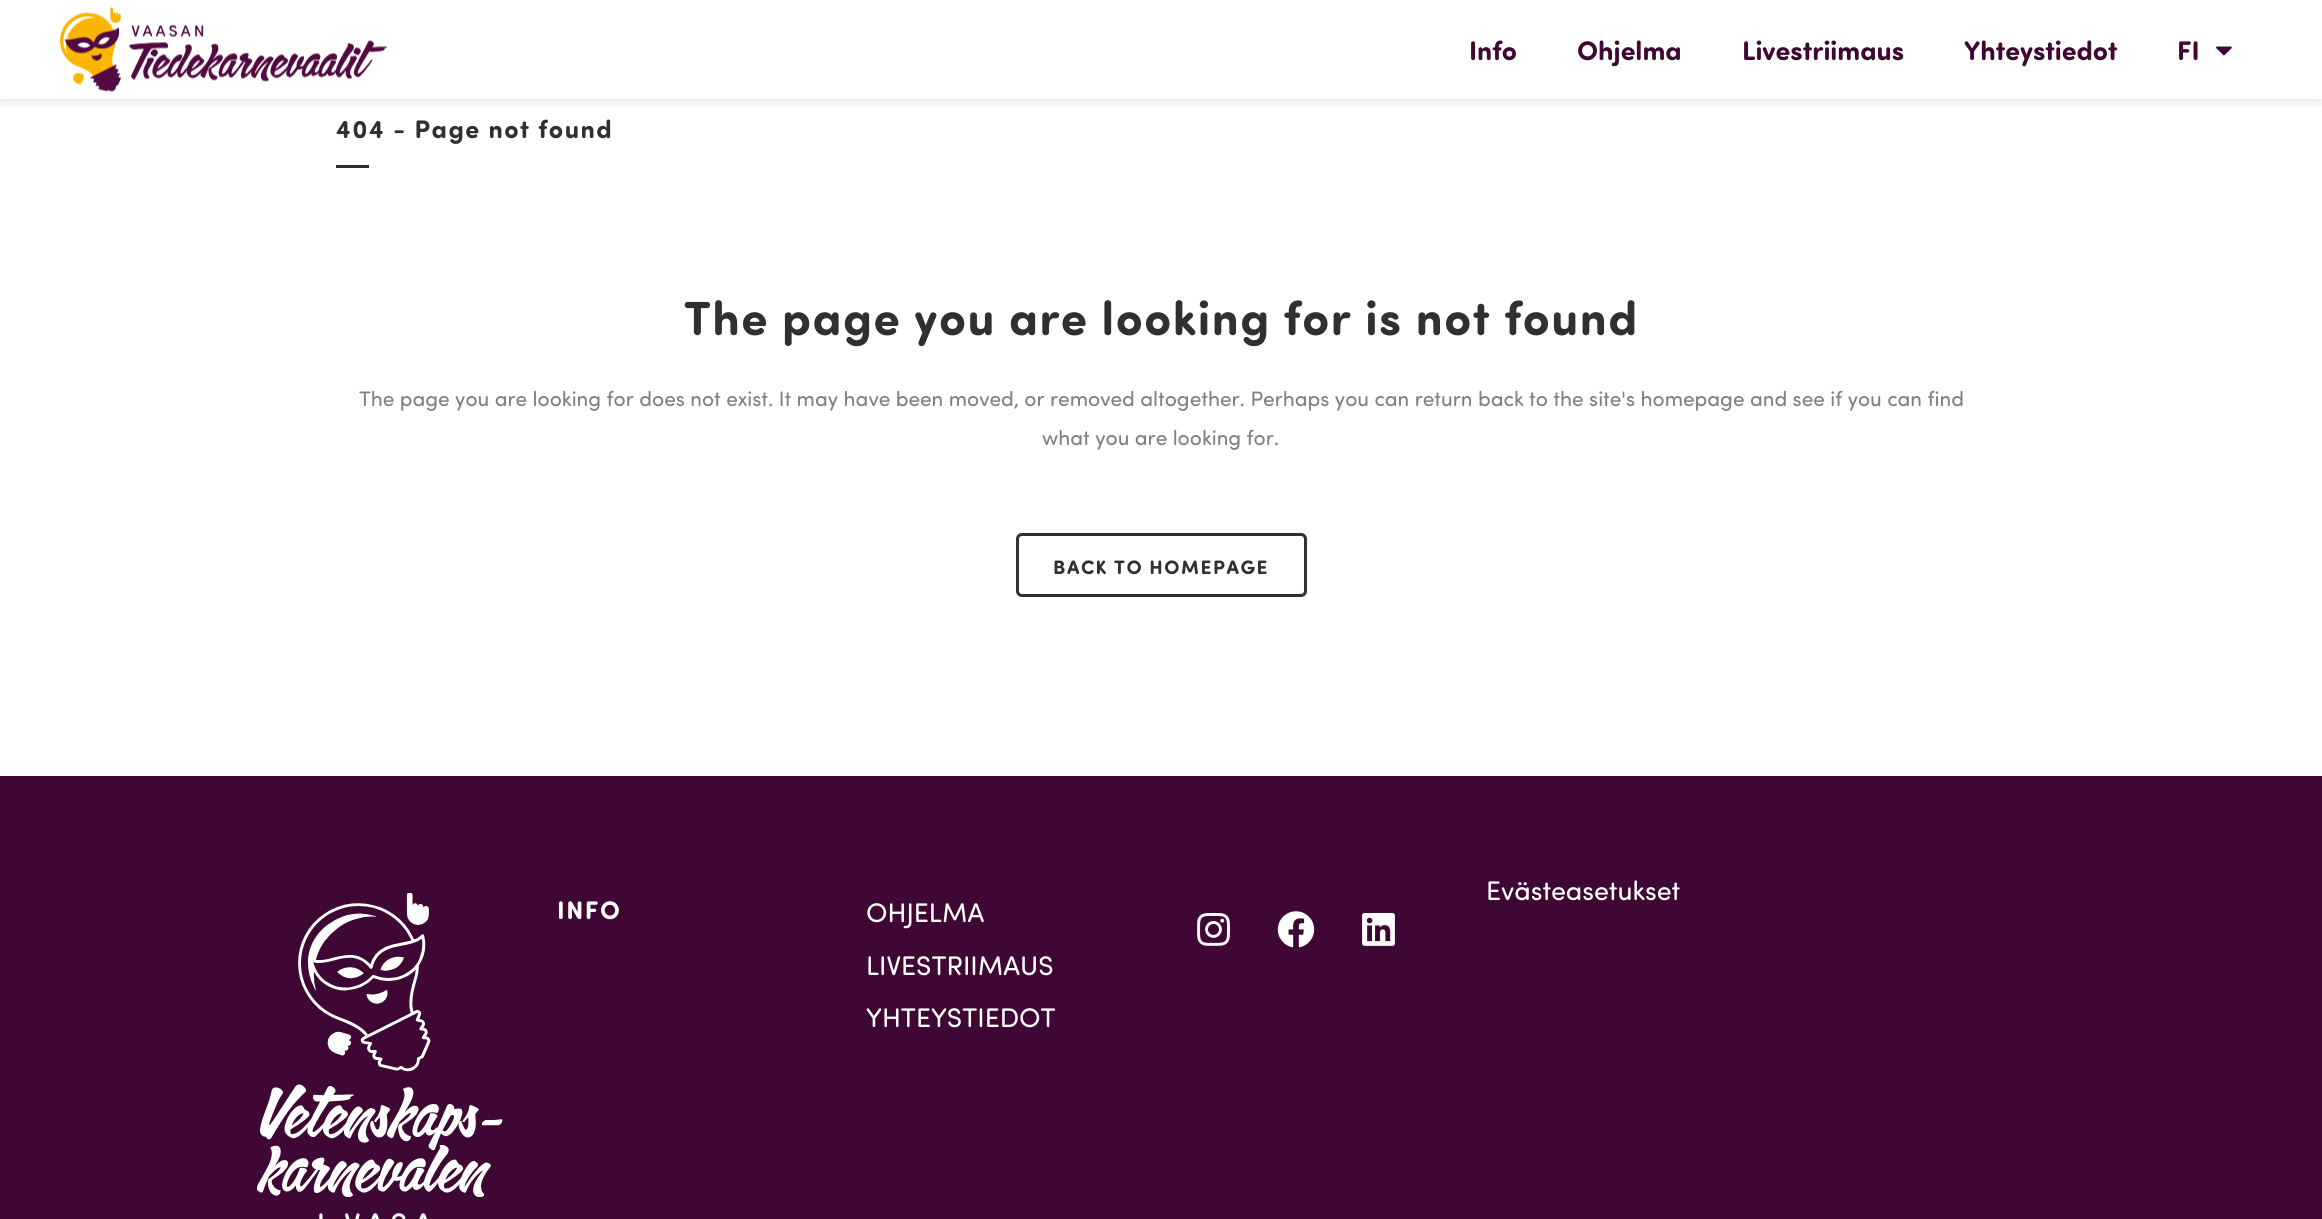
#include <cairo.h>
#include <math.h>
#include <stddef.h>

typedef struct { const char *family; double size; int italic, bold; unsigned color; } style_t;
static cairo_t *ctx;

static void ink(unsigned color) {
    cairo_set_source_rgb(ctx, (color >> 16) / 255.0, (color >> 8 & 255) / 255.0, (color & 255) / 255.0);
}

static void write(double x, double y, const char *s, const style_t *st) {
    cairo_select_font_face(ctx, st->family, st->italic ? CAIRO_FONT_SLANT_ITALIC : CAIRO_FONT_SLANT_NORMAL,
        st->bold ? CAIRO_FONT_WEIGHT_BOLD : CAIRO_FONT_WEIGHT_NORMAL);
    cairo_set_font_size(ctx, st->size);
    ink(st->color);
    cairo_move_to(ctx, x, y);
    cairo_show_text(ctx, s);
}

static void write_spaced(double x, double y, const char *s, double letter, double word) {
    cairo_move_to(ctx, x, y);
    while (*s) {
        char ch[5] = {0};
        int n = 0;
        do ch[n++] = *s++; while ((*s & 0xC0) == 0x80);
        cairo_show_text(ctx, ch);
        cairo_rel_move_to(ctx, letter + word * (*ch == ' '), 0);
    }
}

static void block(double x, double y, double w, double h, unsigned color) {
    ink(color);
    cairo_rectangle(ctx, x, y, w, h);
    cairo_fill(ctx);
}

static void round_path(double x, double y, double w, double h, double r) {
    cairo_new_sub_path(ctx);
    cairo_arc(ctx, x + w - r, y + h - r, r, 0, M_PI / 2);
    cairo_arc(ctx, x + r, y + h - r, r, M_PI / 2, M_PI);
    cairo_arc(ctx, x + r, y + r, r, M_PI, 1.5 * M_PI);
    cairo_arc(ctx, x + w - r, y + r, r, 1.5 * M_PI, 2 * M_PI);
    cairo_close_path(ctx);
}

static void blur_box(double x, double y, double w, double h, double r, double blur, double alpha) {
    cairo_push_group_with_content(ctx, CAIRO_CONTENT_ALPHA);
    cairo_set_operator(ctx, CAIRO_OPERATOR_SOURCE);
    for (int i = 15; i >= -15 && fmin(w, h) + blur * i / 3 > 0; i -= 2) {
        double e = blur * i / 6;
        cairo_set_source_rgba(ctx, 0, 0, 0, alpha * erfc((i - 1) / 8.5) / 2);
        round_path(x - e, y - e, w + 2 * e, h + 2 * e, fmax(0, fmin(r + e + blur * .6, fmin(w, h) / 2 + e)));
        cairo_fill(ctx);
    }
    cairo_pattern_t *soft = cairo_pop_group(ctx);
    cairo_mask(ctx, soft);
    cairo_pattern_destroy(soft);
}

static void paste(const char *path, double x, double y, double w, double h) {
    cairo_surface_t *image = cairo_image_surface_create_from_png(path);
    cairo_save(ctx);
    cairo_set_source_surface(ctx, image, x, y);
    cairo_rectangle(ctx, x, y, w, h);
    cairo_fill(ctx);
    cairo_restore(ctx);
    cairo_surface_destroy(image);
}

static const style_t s1 = {"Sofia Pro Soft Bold", 27, 0, 1, 0x3f0733};
static const style_t s2 = {"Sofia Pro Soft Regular", 21, 0, 0, 0x818181};
static const style_t s3 = {"Sofia Pro Soft Regular", 27, 0, 0, 0xffffff};

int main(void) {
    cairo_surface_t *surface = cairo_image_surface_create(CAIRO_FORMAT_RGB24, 2322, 1219);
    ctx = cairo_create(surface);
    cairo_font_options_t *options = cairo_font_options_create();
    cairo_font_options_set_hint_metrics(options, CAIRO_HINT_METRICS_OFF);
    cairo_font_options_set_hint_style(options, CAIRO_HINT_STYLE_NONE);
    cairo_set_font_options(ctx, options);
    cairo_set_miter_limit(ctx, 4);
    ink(0xffffff);
    cairo_paint(ctx);
    cairo_save(ctx);
    cairo_rectangle(ctx, 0, 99, 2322, 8);
    cairo_clip(ctx);
    ink(0x000000);
    blur_box(0, 0, 2322, 99, 0, 7.5, 0.15);
    cairo_restore(ctx);
    paste("pic1.png", 60, 7, 327, 85);
    write(1469, 60, "Info", &s1);
    write(1577, 60, "Ohjelma", &s1);
    write(1742, 60, "Livestriimaus", &s1);
    write(1964, 60, "Yhteystiedot", &s1);
    write(2177, 60, "FI", &s1);
    paste("pic2.png", 2216, 46, 16, 10);
    cairo_set_font_size(ctx, 25.5);
    ink(0x303030);
    write_spaced(336, 138, "404 - Page not found", 1.5, 0);
    block(336, 165, 33, 3, 0x303030);
    cairo_set_font_size(ctx, 48);
    write_spaced(684, 335, "The page you are looking for is not found", 1.5, 0);
    write(359, 406, "The page you are looking for does not exist. It may have been moved, or removed altogether. Perhaps you can return back to the site's homepage and see if you can find", &s2);
    write(1042, 445, "what you are looking for.", &s2);
    round_path(1017.5, 534.5, 288, 61, 4.5);
    ink(0x303030);
    cairo_set_line_width(ctx, 3);
    cairo_stroke(ctx);
    cairo_select_font_face(ctx, "Sofia Pro Soft Bold", CAIRO_FONT_SLANT_NORMAL, CAIRO_FONT_WEIGHT_BOLD);
    cairo_set_font_size(ctx, 19.5);
    write_spaced(1053, 574, "BACK TO HOMEPAGE", 1.5, 0);
    block(0, 776, 2322, 443, 0x3f0733);
    write(1486, 900, "Evästeasetukset", &s3);
    paste("pic3.png", 257, 893, 246, 326);
    cairo_select_font_face(ctx, "Sofia Pro Soft Bold", CAIRO_FONT_SLANT_NORMAL, CAIRO_FONT_WEIGHT_BOLD);
    cairo_set_font_size(ctx, 25.5);
    write_spaced(557, 919, "INFO", 1.5, 0);
    write(866, 922, "OHJELMA", &s3);
    write(866, 975, "LIVESTRIIMAUS", &s3);
    write(866, 1027, "YHTEYSTIEDOT", &s3);
    paste("pic4.png", 1197, 912, 33, 34);
    paste("pic5.png", 1277, 911, 38, 37);
    paste("pic6.png", 1362, 913, 33, 33);
    cairo_surface_write_to_png(surface, "screenshot.png");
    cairo_font_options_destroy(options);
    cairo_destroy(ctx);
    cairo_surface_destroy(surface);
    return 0;
}
